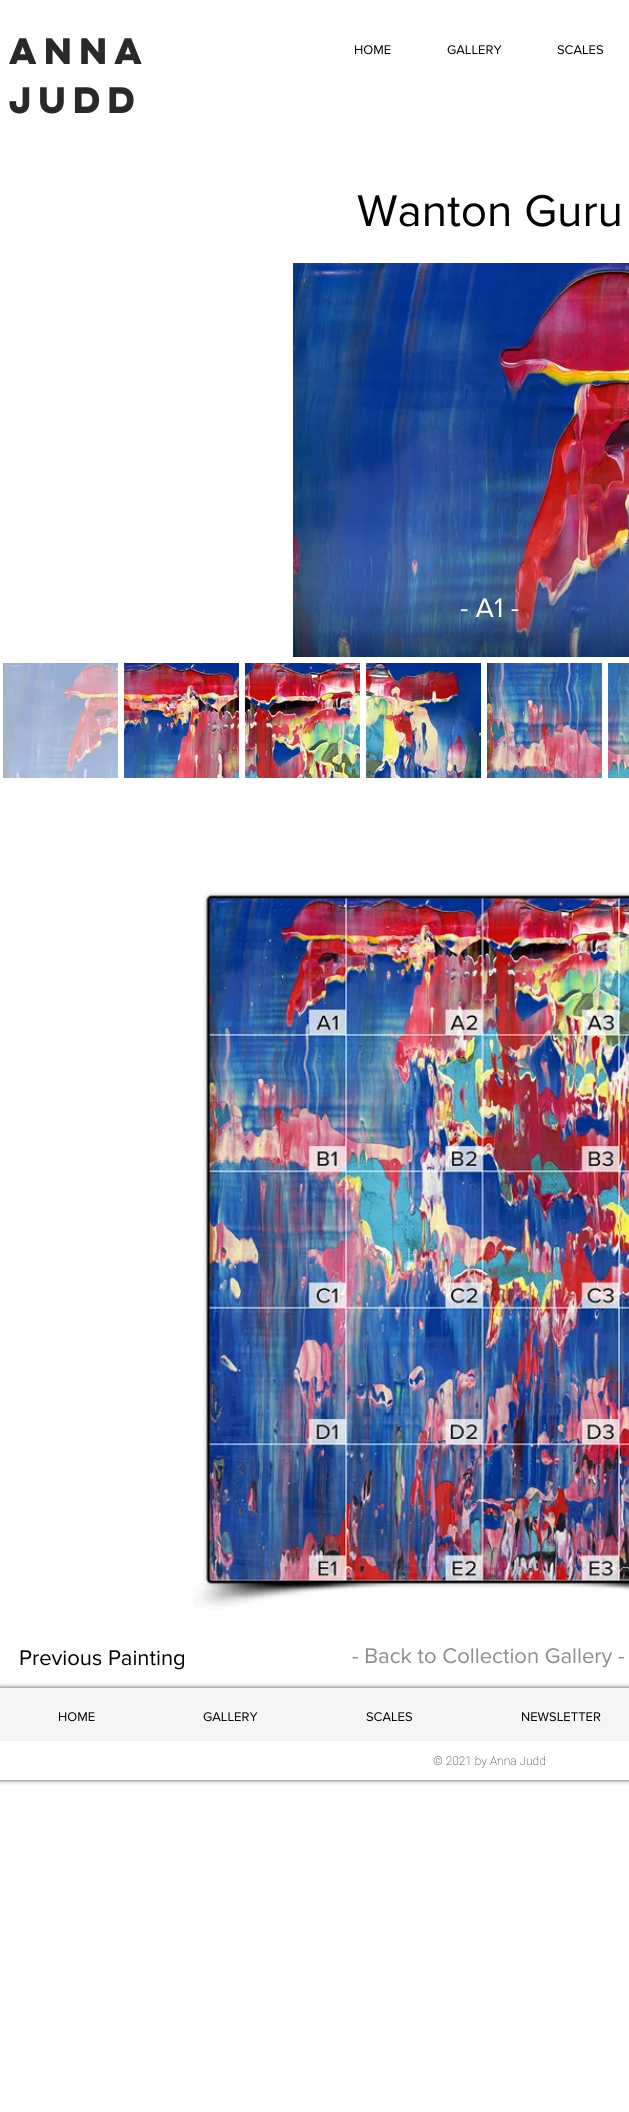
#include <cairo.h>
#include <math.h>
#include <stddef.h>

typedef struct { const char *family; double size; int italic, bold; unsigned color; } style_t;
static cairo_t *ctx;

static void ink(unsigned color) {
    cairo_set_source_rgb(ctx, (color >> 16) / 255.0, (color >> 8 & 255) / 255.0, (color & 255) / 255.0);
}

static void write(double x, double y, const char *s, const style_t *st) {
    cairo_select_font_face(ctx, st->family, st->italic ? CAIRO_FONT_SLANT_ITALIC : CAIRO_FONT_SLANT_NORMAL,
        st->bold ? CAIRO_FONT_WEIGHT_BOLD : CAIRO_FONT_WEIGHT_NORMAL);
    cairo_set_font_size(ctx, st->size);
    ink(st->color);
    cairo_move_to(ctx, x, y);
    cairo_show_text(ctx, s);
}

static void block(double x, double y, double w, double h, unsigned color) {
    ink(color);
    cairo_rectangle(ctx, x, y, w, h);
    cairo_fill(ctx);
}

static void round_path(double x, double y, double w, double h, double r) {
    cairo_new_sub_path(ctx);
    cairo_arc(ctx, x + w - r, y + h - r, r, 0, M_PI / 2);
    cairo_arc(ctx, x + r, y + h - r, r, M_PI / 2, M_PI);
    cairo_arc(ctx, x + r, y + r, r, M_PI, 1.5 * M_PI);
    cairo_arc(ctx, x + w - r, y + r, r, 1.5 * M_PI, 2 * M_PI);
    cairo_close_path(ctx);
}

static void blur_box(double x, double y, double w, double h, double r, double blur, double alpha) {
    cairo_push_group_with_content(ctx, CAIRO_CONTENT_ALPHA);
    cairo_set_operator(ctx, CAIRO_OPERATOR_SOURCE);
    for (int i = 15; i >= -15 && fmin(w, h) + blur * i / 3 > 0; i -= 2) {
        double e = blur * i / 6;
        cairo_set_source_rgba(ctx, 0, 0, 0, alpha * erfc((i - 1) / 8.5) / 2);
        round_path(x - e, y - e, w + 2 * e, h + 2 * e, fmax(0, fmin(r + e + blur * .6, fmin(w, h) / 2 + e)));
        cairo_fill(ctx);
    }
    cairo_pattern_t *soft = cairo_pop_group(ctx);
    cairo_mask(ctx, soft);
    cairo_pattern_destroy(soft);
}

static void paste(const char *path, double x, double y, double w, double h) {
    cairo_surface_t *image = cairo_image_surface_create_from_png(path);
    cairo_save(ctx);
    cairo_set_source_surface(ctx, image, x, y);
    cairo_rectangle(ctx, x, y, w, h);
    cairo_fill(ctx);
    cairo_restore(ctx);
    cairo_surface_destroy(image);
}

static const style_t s1 = {"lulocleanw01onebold", 33, 0, 1, 0x292929};
static const style_t s2 = {"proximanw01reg", 13, 0, 0, 0x000000};
static const style_t s3 = {"proximanw01reg", 46, 0, 0, 0x000000};
static const style_t s4 = {"proximanw01reg", 28, 0, 0, 0xfffef9};
static const style_t s5 = {"proximanw01reg", 22, 0, 0, 0x000000};
static const style_t s6 = {"proximanw01reg", 22, 0, 0, 0x8e8c8b};
static const style_t s7 = {"Roboto Thin", 12, 0, 0, 0x000000};

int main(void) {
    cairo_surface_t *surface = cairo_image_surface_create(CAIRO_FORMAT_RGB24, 629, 2112);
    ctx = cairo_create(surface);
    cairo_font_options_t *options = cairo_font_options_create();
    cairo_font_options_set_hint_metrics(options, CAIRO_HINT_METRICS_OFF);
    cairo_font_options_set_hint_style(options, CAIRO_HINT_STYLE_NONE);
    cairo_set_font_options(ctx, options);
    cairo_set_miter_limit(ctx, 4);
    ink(0xffffff);
    cairo_paint(ctx);
    write(9, 64, "annA", &s1);
    write(9, 113, "judd", &s1);
    write(354, 54, "HOME", &s2);
    write(447, 54, "GALLERY", &s2);
    write(557, 54, "SCALES", &s2);
    write(357, 226, "Wanton Guru", &s3);
    paste("pic1.png", 293, 263, 336, 394);
    write(460, 617, "- A1 -", &s4);
    paste("pic2.png", 3, 663, 115, 115);
    paste("pic3.png", 124, 663, 115, 115);
    paste("pic4.png", 245, 663, 115, 115);
    paste("pic5.png", 366, 663, 115, 115);
    paste("pic6.png", 487, 663, 115, 115);
    paste("pic7.png", 608, 663, 21, 115);
    paste("pic8.png", 193, 892, 436, 718);
    write(19, 1665, "Previous Painting", &s5);
    write(352, 1663, "- Back to Collection Gallery -", &s6);
    cairo_save(ctx);
    cairo_set_fill_rule(ctx, CAIRO_FILL_RULE_EVEN_ODD);
    cairo_new_path(ctx);
    cairo_move_to(ctx, 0, 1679);
    cairo_line_to(ctx, 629, 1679);
    cairo_line_to(ctx, 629, 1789);
    cairo_line_to(ctx, 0, 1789);
    cairo_close_path(ctx);
    cairo_move_to(ctx, 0, 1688);
    cairo_line_to(ctx, 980, 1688);
    cairo_line_to(ctx, 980, 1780);
    cairo_line_to(ctx, 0, 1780);
    cairo_close_path(ctx);
    cairo_clip(ctx);
    ink(0x000000);
    blur_box(0, 1688, 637, 92, 0, 2.5, 0.7);
    cairo_restore(ctx);
    block(0, 1688, 629, 53, 0xf5f5f5);
    write(58, 1721, "HOME", &s2);
    write(203, 1721, "GALLERY", &s2);
    write(366, 1721, "SCALES", &s2);
    write(521, 1721, "NEWSLETTER", &s2);
    write(433, 1765, "© 2021 by Anna Judd", &s7);
    cairo_surface_write_to_png(surface, "screenshot.png");
    cairo_font_options_destroy(options);
    cairo_destroy(ctx);
    cairo_surface_destroy(surface);
    return 0;
}
